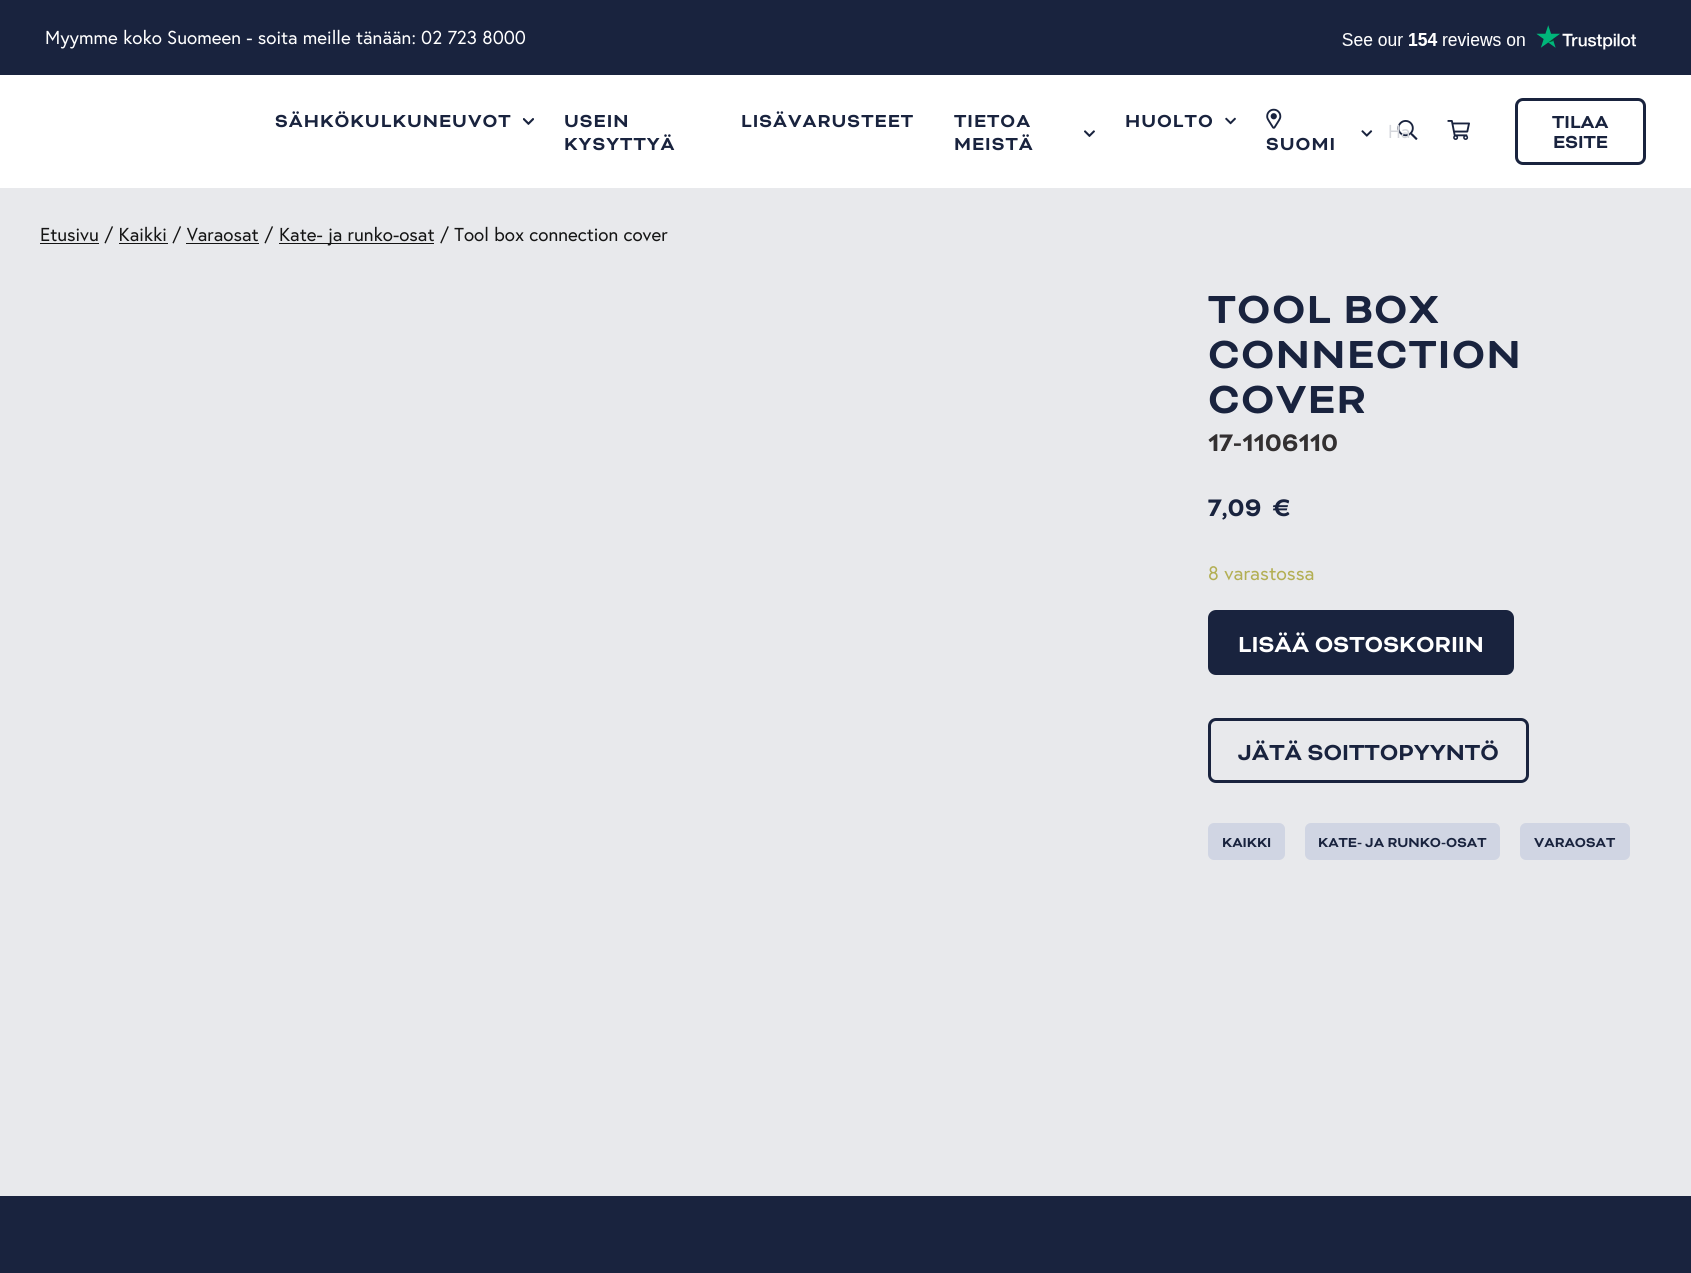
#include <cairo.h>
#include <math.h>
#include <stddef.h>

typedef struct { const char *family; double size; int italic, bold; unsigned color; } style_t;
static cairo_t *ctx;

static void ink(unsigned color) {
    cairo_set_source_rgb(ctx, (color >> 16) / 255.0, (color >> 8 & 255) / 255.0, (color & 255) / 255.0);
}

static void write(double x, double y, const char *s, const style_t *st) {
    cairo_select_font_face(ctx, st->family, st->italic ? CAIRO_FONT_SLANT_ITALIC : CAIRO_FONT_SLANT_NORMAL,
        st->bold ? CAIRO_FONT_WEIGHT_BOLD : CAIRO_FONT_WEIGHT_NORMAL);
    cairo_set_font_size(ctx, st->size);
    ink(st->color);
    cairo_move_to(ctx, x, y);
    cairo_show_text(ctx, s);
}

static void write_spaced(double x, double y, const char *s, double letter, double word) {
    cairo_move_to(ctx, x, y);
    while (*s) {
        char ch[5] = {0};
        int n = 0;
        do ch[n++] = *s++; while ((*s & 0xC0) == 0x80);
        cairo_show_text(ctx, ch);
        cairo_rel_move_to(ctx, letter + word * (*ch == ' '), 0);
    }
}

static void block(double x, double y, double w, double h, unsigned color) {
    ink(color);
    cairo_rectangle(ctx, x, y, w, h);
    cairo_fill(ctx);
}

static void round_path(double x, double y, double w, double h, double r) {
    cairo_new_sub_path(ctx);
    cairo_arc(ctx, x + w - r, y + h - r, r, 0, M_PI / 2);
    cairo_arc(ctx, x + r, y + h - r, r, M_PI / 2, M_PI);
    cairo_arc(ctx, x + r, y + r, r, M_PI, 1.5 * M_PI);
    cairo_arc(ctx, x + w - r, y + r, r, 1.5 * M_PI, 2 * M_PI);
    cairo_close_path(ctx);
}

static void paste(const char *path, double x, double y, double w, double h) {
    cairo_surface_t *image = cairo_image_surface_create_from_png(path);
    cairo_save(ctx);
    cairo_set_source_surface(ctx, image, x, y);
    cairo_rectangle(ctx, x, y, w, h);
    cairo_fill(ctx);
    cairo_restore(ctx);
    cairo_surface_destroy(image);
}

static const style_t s1 = {"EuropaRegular", 18.75, 0, 0, 0xffffff};
static const style_t s2 = {"EuropaRegular", 18.75, 0, 0, 0xd5d7dc};
static const style_t s3 = {"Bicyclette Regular", 20, 0, 1, 0x19233e};
static const style_t s4 = {"EuropaRegular", 18.75, 0, 0, 0x151515};
static const style_t s5 = {"Bicyclette Regular", 27.5, 0, 1, 0x333031};
static const style_t s6 = {"Bicyclette Regular", 27.5, 0, 1, 0x19233e};
static const style_t s7 = {"EuropaRegular", 19.5, 0, 0, 0xb3af54};
static const style_t s8 = {"Bicyclette Regular", 25, 0, 1, 0xffffff};
static const style_t s9 = {"Bicyclette Regular", 25, 0, 1, 0x19233e};
static const style_t s10 = {"Bicyclette Regular", 15, 0, 1, 0x19233e};

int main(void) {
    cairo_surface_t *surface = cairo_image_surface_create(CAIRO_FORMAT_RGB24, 1691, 1273);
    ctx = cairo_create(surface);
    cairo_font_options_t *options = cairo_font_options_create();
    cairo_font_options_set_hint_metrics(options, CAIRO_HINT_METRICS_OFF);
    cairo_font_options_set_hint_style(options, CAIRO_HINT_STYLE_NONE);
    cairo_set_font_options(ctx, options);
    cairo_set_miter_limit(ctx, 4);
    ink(0xffffff);
    cairo_paint(ctx);
    block(0, 0, 1691, 75, 0x19233e);
    write(45, 44, "Myymme koko Suomeen - soita meille tänään: 02 723 8000", &s1);
    paste("pic1.png", 1342, 25, 295, 25);
    cairo_select_font_face(ctx, "Bicyclette Regular", CAIRO_FONT_SLANT_NORMAL, CAIRO_FONT_WEIGHT_BOLD);
    cairo_set_font_size(ctx, 20);
    ink(0x19233e);
    write_spaced(275, 127, "SÄHKÖKULKUNEUVOT", 1, 0);
    paste("pic2.png", 523, 118, 11, 7);
    write_spaced(564, 127, "USEIN", 1, 0);
    write_spaced(564, 150, "KYSYTTYÄ", 1, 0);
    write_spaced(741, 127, "LISÄVARUSTEET", 1, 0);
    write_spaced(954, 127, "TIETOA", 1, 0);
    write_spaced(954, 150, "MEISTÄ", 1, 0);
    paste("pic3.png", 1084, 130, 11, 7);
    write_spaced(1125, 127, "HUOLTO", 1, 0);
    paste("pic4.png", 1225, 117, 11, 8);
    paste("pic5.png", 1361, 130, 12, 7);
    paste("pic6.png", 1266, 108, 16, 21);
    write_spaced(1266, 150, "SUOMI", 1, 0);
    paste("pic7.png", 1397, 120, 21, 20);
    write(1388, 138, "Ha", &s2);
    paste("pic8.png", 1447, 120, 23, 20);
    round_path(1516.5, 99.5, 128, 64, 6.5);
    ink(0x19233e);
    cairo_set_line_width(ctx, 3);
    cairo_stroke(ctx);
    write(1552, 128, "TILAA", &s3);
    write(1553, 148, "ESITE", &s3);
    block(0, 188, 1691, 1008, 0xe8e9ec);
    block(40, 243, 59, 1, 0x151515);
    write(40, 241, "Etusivu / Kaikki / Varaosat /", &s4);
    block(279, 243, 155, 1, 0x151515);
    write(279, 241, "Kate- ja runko-osat / Tool box connection cover", &s4);
    block(119, 243, 49, 1, 0x151515);
    block(186, 243, 73, 1, 0x151515);
    cairo_select_font_face(ctx, "Bicyclette Regular", CAIRO_FONT_SLANT_NORMAL, CAIRO_FONT_WEIGHT_BOLD);
    cairo_set_font_size(ctx, 45);
    ink(0x19233e);
    write_spaced(1208, 323, "TOOL BOX", 1.4, 0);
    write_spaced(1208, 368, "CONNECTION", 1.4, 0);
    write_spaced(1208, 413, "COVER", 1.4, 0);
    write(1208, 451, "17-1106110", &s5);
    write(1208, 516, "7,09", &s6);
    write(1272, 516, "€", &s6);
    write(1208, 580, "8 varastossa", &s7);
    ink(0x19233e);
    round_path(1208, 610, 306, 65, 8);
    cairo_fill(ctx);
    write(1238, 652, "LISÄÄ OSTOSKORIIN", &s8);
    round_path(1209.5, 719.5, 318, 62, 6.5);
    ink(0x19233e);
    cairo_stroke(ctx);
    write(1238, 760, "JÄTÄ SOITTOPYYNTÖ", &s9);
    ink(0xd0d5e3);
    round_path(1208, 823, 77, 37, 6);
    cairo_fill(ctx);
    write(1222, 847, "KAIKKI", &s10);
    ink(0xd0d5e3);
    round_path(1305, 823, 195, 37, 6);
    cairo_fill(ctx);
    write(1318, 847, "KATE- JA RUNKO-OSAT", &s10);
    ink(0xd0d5e3);
    round_path(1520, 823, 110, 37, 6);
    cairo_fill(ctx);
    write(1534, 847, "VARAOSAT", &s10);
    block(0, 1196, 1691, 77, 0x19233e);
    cairo_surface_write_to_png(surface, "screenshot.png");
    cairo_font_options_destroy(options);
    cairo_destroy(ctx);
    cairo_surface_destroy(surface);
    return 0;
}
